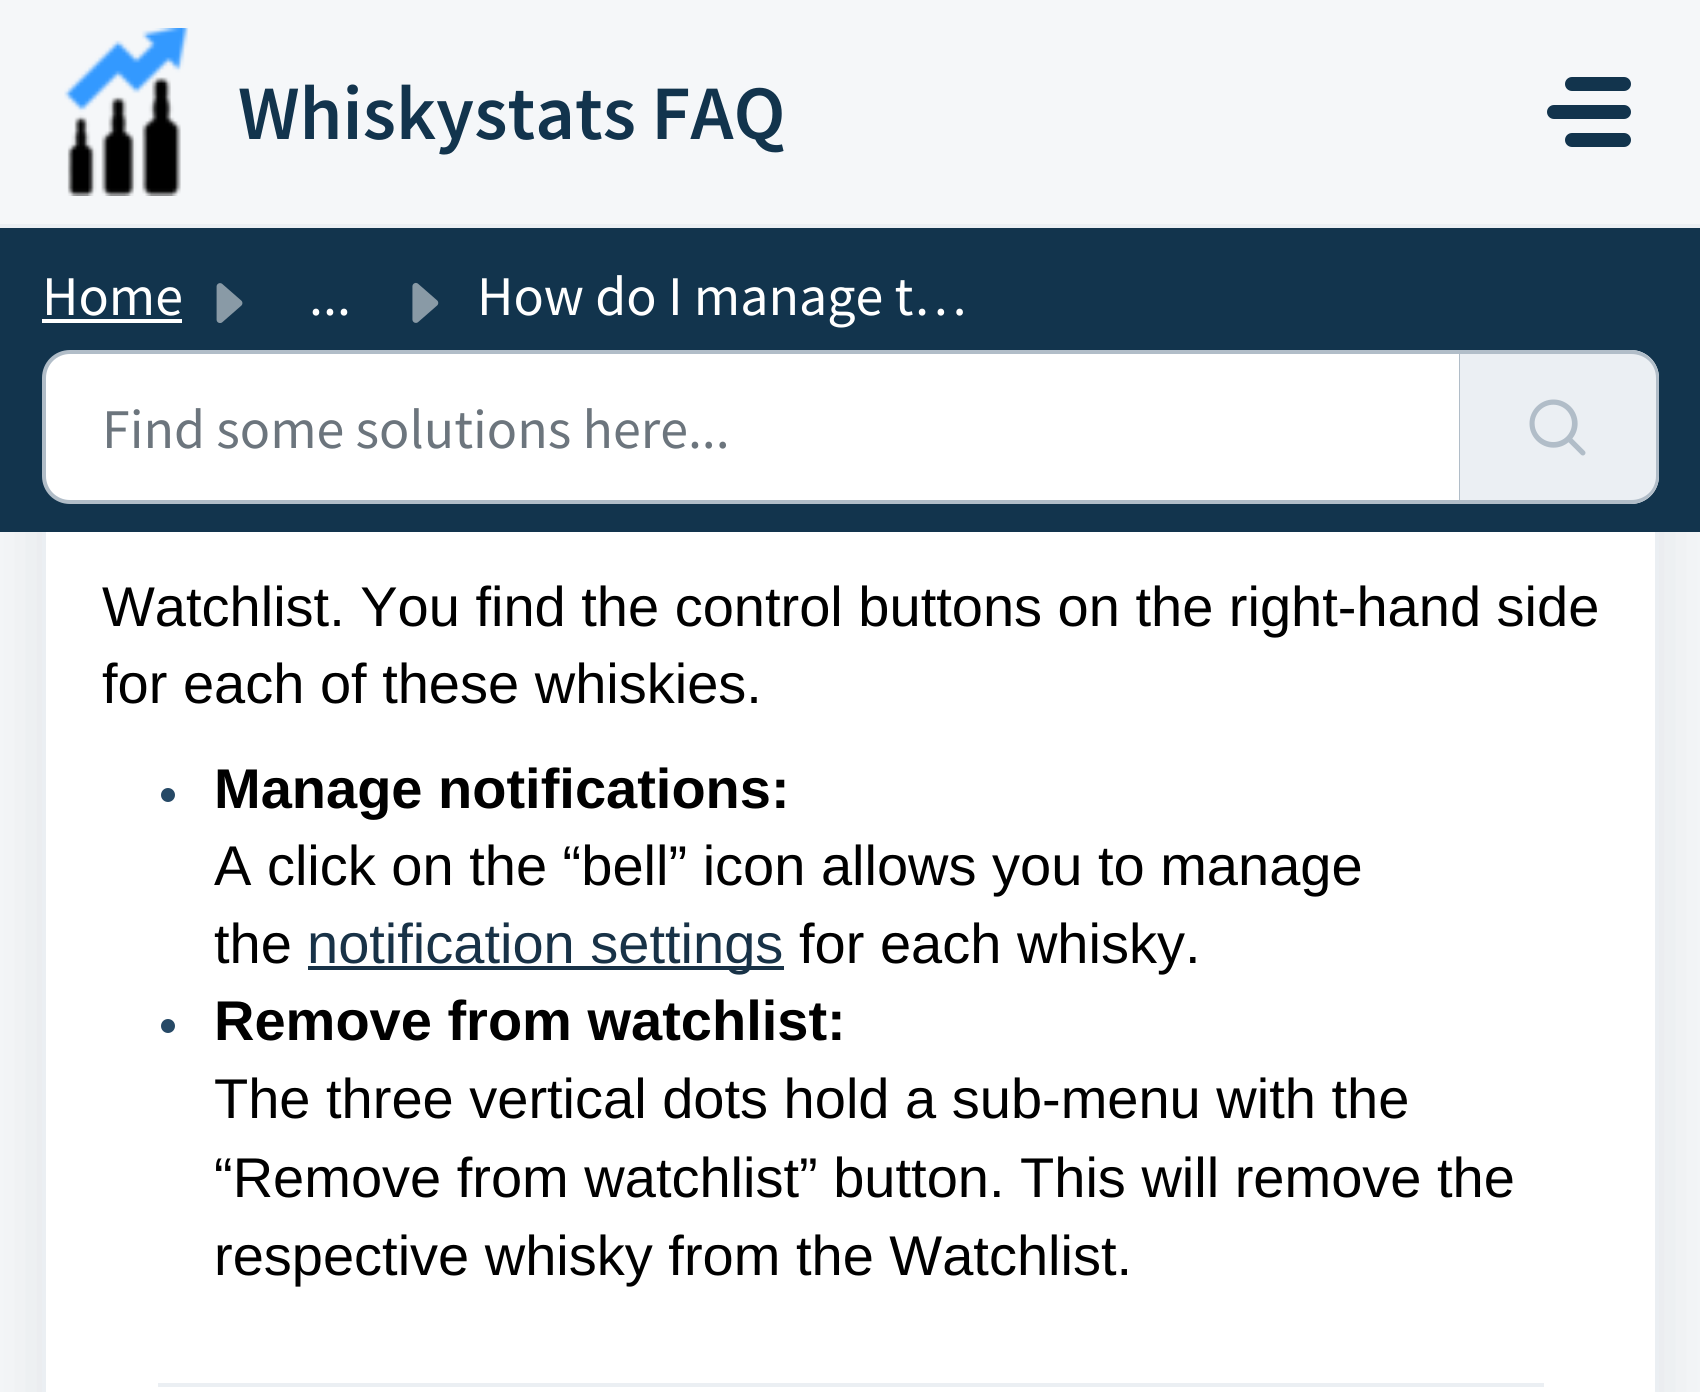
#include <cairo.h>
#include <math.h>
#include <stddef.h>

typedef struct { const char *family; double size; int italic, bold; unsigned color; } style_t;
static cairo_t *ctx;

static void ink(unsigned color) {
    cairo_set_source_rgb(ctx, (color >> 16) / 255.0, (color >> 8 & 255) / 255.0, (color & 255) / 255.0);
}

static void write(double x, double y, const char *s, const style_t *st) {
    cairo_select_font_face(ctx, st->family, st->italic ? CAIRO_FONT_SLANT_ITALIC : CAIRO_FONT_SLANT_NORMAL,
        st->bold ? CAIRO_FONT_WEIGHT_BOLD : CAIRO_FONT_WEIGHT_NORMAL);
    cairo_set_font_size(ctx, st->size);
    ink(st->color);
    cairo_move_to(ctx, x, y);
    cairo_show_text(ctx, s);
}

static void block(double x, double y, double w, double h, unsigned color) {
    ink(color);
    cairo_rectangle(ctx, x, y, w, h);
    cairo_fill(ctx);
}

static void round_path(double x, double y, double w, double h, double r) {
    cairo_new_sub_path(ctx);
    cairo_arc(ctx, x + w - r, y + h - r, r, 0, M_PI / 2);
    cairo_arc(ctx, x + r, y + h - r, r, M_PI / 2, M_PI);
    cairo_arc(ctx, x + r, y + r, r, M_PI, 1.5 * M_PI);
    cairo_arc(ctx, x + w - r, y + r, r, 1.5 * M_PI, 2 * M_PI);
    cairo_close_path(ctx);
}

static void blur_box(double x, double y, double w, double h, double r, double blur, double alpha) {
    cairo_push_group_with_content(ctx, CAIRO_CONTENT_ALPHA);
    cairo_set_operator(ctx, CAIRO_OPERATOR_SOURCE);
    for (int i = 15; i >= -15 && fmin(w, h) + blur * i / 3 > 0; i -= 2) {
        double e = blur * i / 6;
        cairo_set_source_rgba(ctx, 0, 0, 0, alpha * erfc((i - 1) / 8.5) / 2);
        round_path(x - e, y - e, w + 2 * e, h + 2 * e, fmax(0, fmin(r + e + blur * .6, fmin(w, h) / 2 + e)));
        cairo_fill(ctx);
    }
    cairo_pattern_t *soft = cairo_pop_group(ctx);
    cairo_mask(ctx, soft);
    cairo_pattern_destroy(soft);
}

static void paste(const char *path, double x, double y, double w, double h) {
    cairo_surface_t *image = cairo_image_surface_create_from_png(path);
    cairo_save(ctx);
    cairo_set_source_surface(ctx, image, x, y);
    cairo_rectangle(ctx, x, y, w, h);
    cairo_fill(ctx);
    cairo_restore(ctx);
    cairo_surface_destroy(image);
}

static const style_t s1 = {"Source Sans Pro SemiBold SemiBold", 77, 0, 0, 0x12344d};
static const style_t s2 = {"Source Sans Pro", 56, 0, 0, 0xffffff};
static const style_t s3 = {"Source Sans Pro", 56, 0, 0, 0x6c757d};
static const style_t s4 = {"Liberation Sans", 56, 0, 0, 0x000000};
static const style_t s5 = {"Liberation Sans", 56, 0, 1, 0x000000};
static const style_t s6 = {"Liberation Sans", 56, 0, 0, 0x183247};

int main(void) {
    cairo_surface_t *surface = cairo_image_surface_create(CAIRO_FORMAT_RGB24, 1700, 1392);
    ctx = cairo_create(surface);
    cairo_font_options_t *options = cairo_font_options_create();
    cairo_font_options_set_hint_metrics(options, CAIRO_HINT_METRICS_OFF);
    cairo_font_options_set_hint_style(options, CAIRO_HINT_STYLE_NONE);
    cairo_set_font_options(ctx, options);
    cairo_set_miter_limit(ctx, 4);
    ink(0xf5f7f9);
    cairo_paint(ctx);
    block(0, 224, 1700, 4, 0xebeff3);
    paste("pic1.png", 64, 28, 125, 168);
    write(238, 139, "Whiskystats FAQ", &s1);
    round_path(1565, 77, 66, 14, 7);
    cairo_fill(ctx);
    round_path(1547, 105, 84, 14, 7);
    cairo_fill(ctx);
    round_path(1565, 133, 66, 14, 7);
    cairo_fill(ctx);
    block(46, 532, 1609, 860, 0xffffff);
    cairo_save(ctx);
    cairo_set_fill_rule(ctx, CAIRO_FILL_RULE_EVEN_ODD);
    cairo_new_path(ctx);
    cairo_move_to(ctx, 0, 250);
    cairo_line_to(ctx, 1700, 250);
    cairo_line_to(ctx, 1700, 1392);
    cairo_line_to(ctx, 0, 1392);
    cairo_close_path(ctx);
    cairo_move_to(ctx, 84, 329);
    cairo_line_to(ctx, 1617, 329);
    cairo_curve_to(ctx, 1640, 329, 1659, 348, 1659, 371);
    cairo_line_to(ctx, 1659, 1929);
    cairo_curve_to(ctx, 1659, 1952, 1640, 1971, 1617, 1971);
    cairo_line_to(ctx, 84, 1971);
    cairo_curve_to(ctx, 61, 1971, 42, 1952, 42, 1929);
    cairo_line_to(ctx, 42, 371);
    cairo_curve_to(ctx, 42, 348, 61, 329, 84, 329);
    cairo_close_path(ctx);
    cairo_clip(ctx);
    ink(0x27313a);
    blur_box(42, 350, 1617, 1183, 42, 33, 0.1);
    cairo_restore(ctx);
    cairo_rectangle(ctx, 44, 331, 1613, 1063);
    ink(0xebeff3);
    cairo_set_line_width(ctx, 4);
    cairo_stroke(ctx);
    block(0, 228, 1700, 304, 0x12344d);
    write(42, 315, "Home", &s2);
    block(42, 319, 140, 4, 0xffffff);
    paste("pic2.png", 216, 283, 27, 40);
    write(309, 315, "...", &s2);
    paste("pic3.png", 412, 282, 27, 41);
    write(477, 315, "How do I manage t…", &s2);
    cairo_new_path(ctx);
    cairo_move_to(ctx, 70, 352);
    cairo_line_to(ctx, 1461, 352);
    cairo_line_to(ctx, 1461, 502);
    cairo_line_to(ctx, 70, 502);
    cairo_curve_to(ctx, 55.5, 502, 44, 490.5, 44, 476);
    cairo_line_to(ctx, 44, 378);
    cairo_curve_to(ctx, 44, 363.5, 55.5, 352, 70, 352);
    cairo_close_path(ctx);
    cairo_fill_preserve(ctx);
    ink(0xb1bdc8);
    cairo_stroke(ctx);
    write(102, 448, "Find some solutions here...", &s3);
    ink(0xebeff3);
    cairo_new_path(ctx);
    cairo_move_to(ctx, 1460, 350);
    cairo_line_to(ctx, 1631, 350);
    cairo_curve_to(ctx, 1646.5, 350, 1659, 362.5, 1659, 378);
    cairo_line_to(ctx, 1659, 476);
    cairo_curve_to(ctx, 1659, 491.5, 1646.5, 504, 1631, 504);
    cairo_line_to(ctx, 1460, 504);
    cairo_close_path(ctx);
    cairo_fill(ctx);
    ink(0xb1bdc8);
    cairo_set_fill_rule(ctx, CAIRO_FILL_RULE_EVEN_ODD);
    cairo_new_path(ctx);
    cairo_move_to(ctx, 1460, 350);
    cairo_line_to(ctx, 1631, 350);
    cairo_curve_to(ctx, 1646, 350, 1659, 363, 1659, 378);
    cairo_line_to(ctx, 1659, 476);
    cairo_curve_to(ctx, 1659, 491, 1646, 504, 1631, 504);
    cairo_line_to(ctx, 1460, 504);
    cairo_close_path(ctx);
    cairo_move_to(ctx, 1460, 354);
    cairo_line_to(ctx, 1631, 354);
    cairo_curve_to(ctx, 1645, 354, 1656, 364, 1656, 378);
    cairo_line_to(ctx, 1656, 476);
    cairo_curve_to(ctx, 1656, 490, 1645, 500, 1631, 500);
    cairo_line_to(ctx, 1460, 500);
    cairo_close_path(ctx);
    cairo_fill(ctx);
    paste("pic4.png", 1529, 399, 57, 57);
    write(102, 626, "Watchlist. You find the control buttons on the right-hand side", &s4);
    write(102, 703, "for each of these whiskies.", &s4);
    ink(0x264966);
    cairo_new_path(ctx);
    cairo_arc(ctx, 168, 795, 7, 0, 2 * M_PI);
    cairo_fill(ctx);
    write(214, 808, "Manage notifications:", &s5);
    write(214, 885, "A click on the “bell” icon allows you to manage", &s4);
    write(214, 963, "the", &s4);
    block(308, 966, 476, 4, 0x183247);
    write(307, 963, "notification settings", &s6);
    write(799, 963, "for each whisky.", &s4);
    ink(0x264966);
    cairo_new_path(ctx);
    cairo_arc(ctx, 168, 1026, 7, 0, 2 * M_PI);
    cairo_fill(ctx);
    write(214, 1040, "Remove from watchlist:", &s5);
    write(214, 1118, "The three vertical dots hold a sub-menu with the", &s4);
    write(214, 1197, "“Remove from watchlist” button. This will remove the", &s4);
    write(214, 1275, "respective whisky from the Watchlist.", &s4);
    block(158, 1383, 1386, 4, 0xebeff3);
    cairo_surface_write_to_png(surface, "screenshot.png");
    cairo_font_options_destroy(options);
    cairo_destroy(ctx);
    cairo_surface_destroy(surface);
    return 0;
}
